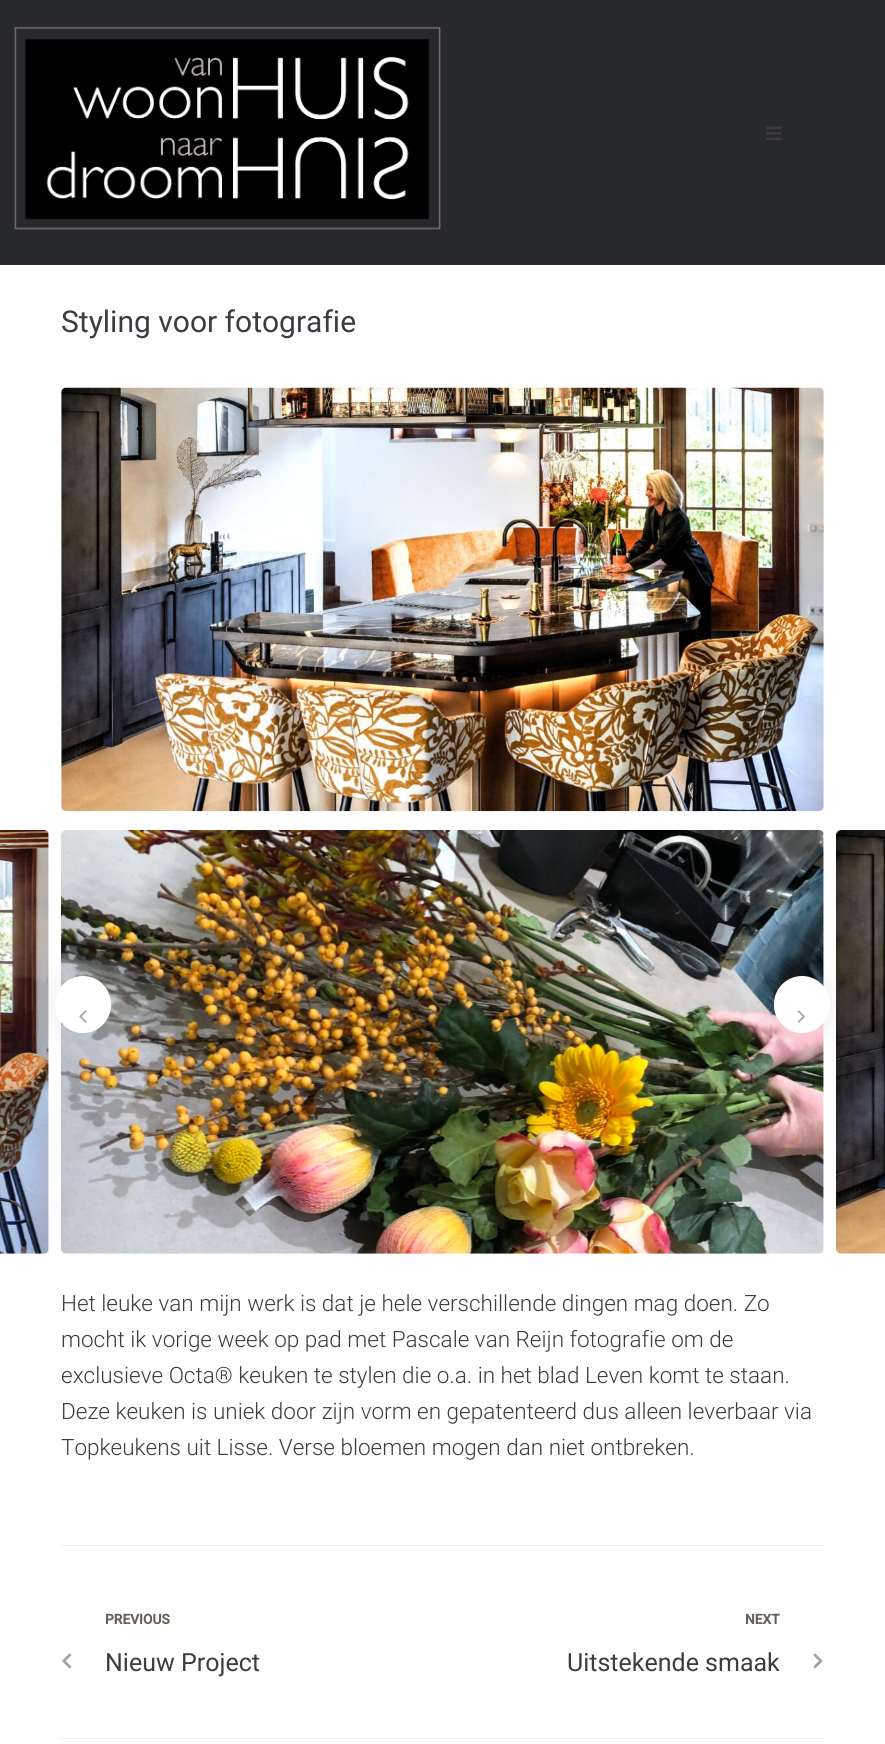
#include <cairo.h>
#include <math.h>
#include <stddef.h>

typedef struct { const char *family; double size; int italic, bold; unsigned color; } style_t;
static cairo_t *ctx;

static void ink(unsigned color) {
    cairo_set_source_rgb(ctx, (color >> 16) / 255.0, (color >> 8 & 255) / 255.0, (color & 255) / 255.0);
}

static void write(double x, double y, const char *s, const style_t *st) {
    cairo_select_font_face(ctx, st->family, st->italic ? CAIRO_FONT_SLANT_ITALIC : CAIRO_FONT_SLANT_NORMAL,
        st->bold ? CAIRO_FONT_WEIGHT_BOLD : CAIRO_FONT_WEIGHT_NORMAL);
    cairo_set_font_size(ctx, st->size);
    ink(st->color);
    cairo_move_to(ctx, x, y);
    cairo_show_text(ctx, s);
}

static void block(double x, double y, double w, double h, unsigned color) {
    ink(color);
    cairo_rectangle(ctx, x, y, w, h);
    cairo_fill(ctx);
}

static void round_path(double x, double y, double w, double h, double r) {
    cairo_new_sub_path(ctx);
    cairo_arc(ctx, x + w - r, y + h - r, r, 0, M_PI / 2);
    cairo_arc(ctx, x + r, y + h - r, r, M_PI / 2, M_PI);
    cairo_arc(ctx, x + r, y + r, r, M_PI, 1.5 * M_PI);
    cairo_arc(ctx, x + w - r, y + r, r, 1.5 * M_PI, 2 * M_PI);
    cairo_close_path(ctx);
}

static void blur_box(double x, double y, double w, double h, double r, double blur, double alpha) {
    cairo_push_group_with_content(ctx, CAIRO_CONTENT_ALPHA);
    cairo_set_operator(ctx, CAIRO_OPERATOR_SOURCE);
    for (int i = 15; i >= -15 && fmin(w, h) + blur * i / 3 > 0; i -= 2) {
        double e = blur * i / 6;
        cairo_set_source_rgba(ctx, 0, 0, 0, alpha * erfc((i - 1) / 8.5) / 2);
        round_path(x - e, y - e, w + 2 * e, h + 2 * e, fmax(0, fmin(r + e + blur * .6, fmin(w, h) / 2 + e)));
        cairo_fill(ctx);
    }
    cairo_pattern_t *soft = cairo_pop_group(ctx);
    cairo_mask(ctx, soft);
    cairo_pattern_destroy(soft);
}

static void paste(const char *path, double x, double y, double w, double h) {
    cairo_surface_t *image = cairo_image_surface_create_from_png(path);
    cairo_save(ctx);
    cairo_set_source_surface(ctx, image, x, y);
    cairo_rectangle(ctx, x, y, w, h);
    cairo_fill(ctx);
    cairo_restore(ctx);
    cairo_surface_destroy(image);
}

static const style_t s1 = {"Roboto", 30, 0, 0, 0x3b3d42};
static const style_t s2 = {"Roboto Light", 22.5, 0, 0, 0x3b3d42};
static const style_t s3 = {"Roboto", 13.75, 0, 1, 0x686157};
static const style_t s4 = {"Roboto", 25, 0, 0, 0x3b3d42};

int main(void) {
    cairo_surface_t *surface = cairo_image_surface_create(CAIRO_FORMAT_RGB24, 885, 1744);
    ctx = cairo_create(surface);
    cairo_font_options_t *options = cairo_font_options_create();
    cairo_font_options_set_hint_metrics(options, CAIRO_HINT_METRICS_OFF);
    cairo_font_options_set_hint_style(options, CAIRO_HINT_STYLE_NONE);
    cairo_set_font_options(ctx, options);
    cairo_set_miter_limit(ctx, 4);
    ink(0xffffff);
    cairo_paint(ctx);
    block(0, 0, 885, 265, 0x28292d);
    paste("pic1.png", 14, 26, 427, 204);
    paste("pic2.png", 766, 126, 16, 14);
    block(61, 1545, 763, 1, 0xebeced);
    write(61, 332, "Styling voor fotografie", &s1);
    paste("pic3.png", 61, 387, 763, 425);
    paste("pic4.png", 0, 830, 49, 424);
    paste("pic5.png", 61, 830, 763, 424);
    paste("pic6.png", 836, 830, 49, 424);
    ink(0x3b3d42);
    blur_box(55, 976, 56, 57, 28, 12.5, 0.1);
    ink(0xffffff);
    round_path(55, 976, 56, 57, 28);
    cairo_fill(ctx);
    paste("pic7.png", 79, 1010, 8, 13);
    ink(0x3b3d42);
    blur_box(774, 976, 56, 57, 28, 12.5, 0.1);
    ink(0xffffff);
    round_path(774, 976, 56, 57, 28);
    cairo_fill(ctx);
    paste("pic8.png", 797, 1010, 8, 13);
    write(61, 1311, "Het leuke van mijn werk is dat je hele verschillende dingen mag doen. Zo", &s2);
    write(61, 1347, "mocht ik vorige week op pad met Pascale van Reijn fotografie om de", &s2);
    write(61, 1383, "exclusieve Octa® keuken te stylen die o.a. in het blad Leven komt te staan.", &s2);
    write(61, 1419, "Deze keuken is uniek door zijn vorm en gepatenteerd dus alleen leverbaar via", &s2);
    write(61, 1455, "Topkeukens uit Lisse. Verse bloemen mogen dan niet ontbreken.", &s2);
    block(61, 1738, 763, 1, 0xebeced);
    write(105, 1624, "PREVIOUS", &s3);
    paste("pic9.png", 62, 1653, 10, 16);
    write(105, 1671, "Nieuw Project", &s4);
    write(745, 1624, "NEXT", &s3);
    write(567, 1671, "Uitstekende smaak", &s4);
    paste("pic10.png", 813, 1653, 10, 16);
    cairo_surface_write_to_png(surface, "screenshot.png");
    cairo_font_options_destroy(options);
    cairo_destroy(ctx);
    cairo_surface_destroy(surface);
    return 0;
}
